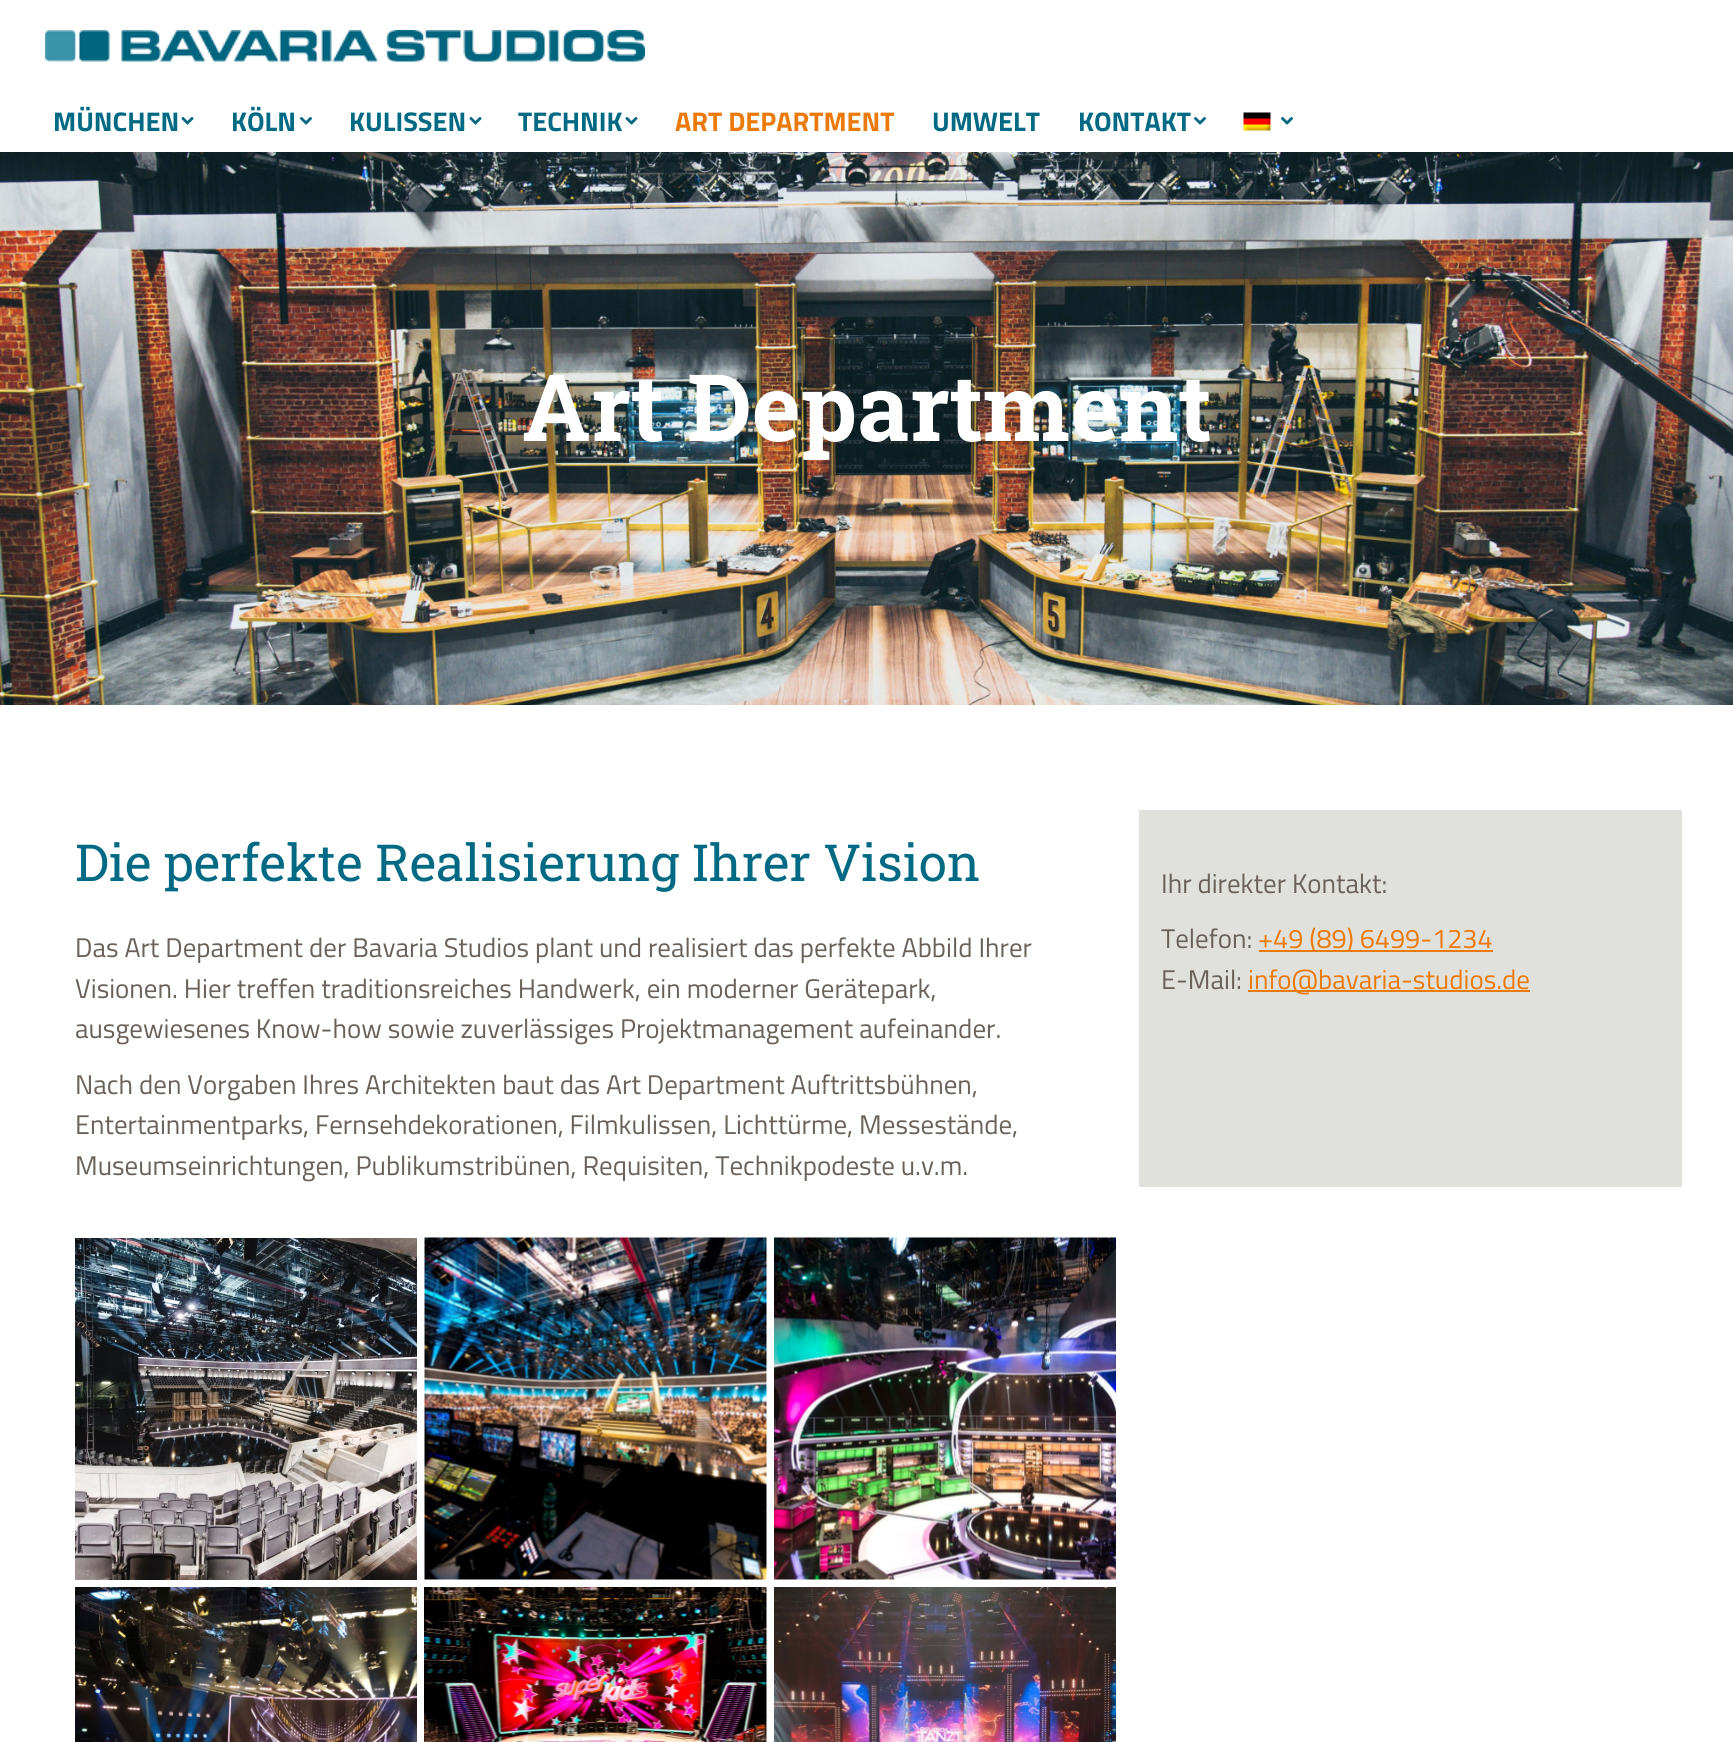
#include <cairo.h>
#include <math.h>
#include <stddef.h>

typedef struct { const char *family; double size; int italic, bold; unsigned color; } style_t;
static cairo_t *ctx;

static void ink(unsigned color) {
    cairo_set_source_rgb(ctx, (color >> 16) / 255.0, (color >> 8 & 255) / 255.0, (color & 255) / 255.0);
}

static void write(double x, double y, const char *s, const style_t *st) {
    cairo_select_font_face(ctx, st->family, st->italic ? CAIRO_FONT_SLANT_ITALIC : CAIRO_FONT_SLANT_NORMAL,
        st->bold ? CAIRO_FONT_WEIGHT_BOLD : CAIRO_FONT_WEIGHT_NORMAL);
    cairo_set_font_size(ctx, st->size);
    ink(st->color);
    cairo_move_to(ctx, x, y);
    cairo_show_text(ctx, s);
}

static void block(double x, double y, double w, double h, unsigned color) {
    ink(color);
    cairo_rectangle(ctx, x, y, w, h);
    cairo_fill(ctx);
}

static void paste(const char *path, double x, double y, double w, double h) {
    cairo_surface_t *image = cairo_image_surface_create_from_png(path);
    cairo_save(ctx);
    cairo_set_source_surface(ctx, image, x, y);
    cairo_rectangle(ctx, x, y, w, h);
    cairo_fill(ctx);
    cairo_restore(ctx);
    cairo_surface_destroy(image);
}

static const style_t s1 = {"Titillium Web", 27, 0, 1, 0x006983};
static const style_t s2 = {"Titillium Web", 27, 0, 1, 0xec7a08};
static const style_t s3 = {"Roboto Slab", 93, 0, 1, 0xffffff};
static const style_t s4 = {"Roboto Slab", 51, 0, 0, 0x006983};
static const style_t s5 = {"Titillium Web", 27, 0, 0, 0x6a625a};
static const style_t s6 = {"Titillium Web", 27, 0, 0, 0xec7a08};

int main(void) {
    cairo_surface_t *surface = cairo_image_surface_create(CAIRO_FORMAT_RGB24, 1733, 1742);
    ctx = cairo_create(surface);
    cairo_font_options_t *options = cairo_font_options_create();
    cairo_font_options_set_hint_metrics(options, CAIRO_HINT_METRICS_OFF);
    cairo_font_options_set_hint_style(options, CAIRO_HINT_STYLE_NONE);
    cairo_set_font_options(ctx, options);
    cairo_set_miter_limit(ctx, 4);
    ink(0xffffff);
    cairo_paint(ctx);
    paste("pic1.png", 45, 30, 600, 32);
    write(53, 131, "MÜNCHEN", &s1);
    paste("pic2.png", 181, 117, 13, 8);
    write(231, 131, "KÖLN", &s1);
    paste("pic3.png", 300, 117, 12, 8);
    write(349, 131, "KULISSEN", &s1);
    paste("pic2.png", 469, 117, 13, 8);
    write(518, 131, "TECHNIK", &s1);
    paste("pic2.png", 625, 117, 13, 8);
    write(675, 131, "ART DEPARTMENT", &s2);
    write(932, 131, "UMWELT", &s1);
    write(1078, 131, "KONTAKT", &s1);
    paste("pic3.png", 1194, 117, 12, 8);
    paste("pic4.png", 1243, 112, 28, 19);
    paste("pic3.png", 1281, 117, 12, 8);
    paste("pic5.png", 0, 152, 1733, 553);
    write(522, 441, "Art Department", &s3);
    write(75, 881, "Die perfekte Realisierung Ihrer Vision", &s4);
    write(75, 957, "Das Art Department der Bavaria Studios plant und realisiert das perfekte Abbild Ihrer", &s5);
    write(75, 998, "Visionen. Hier treffen traditionsreiches Handwerk, ein moderner Gerätepark,", &s5);
    write(75, 1038, "ausgewiesenes Know-how sowie zuverlässiges Projektmanagement aufeinander.", &s5);
    write(75, 1094, "Nach den Vorgaben Ihres Architekten baut das Art Department Auftrittsbühnen,", &s5);
    write(75, 1134, "Entertainmentparks, Fernsehdekorationen, Filmkulissen, Lichttürme, Messestände,", &s5);
    write(75, 1175, "Museumseinrichtungen, Publikumstribünen, Requisiten, Technikpodeste u.v.m.", &s5);
    paste("pic6.png", 75, 1238, 342, 342);
    paste("pic7.png", 424, 1237, 343, 343);
    paste("pic8.png", 774, 1237, 342, 343);
    paste("pic9.png", 75, 1587, 342, 155);
    paste("pic10.png", 424, 1587, 343, 155);
    paste("pic11.png", 774, 1587, 342, 155);
    block(1139, 810, 543, 377, 0xe0e1dd);
    write(1161, 893, "Ihr direkter Kontakt:", &s5);
    write(1161, 948, "Telefon:", &s5);
    block(1259, 950, 234, 2, 0xec7a08);
    write(1258, 948, "+49 (89) 6499-1234", &s6);
    write(1161, 989, "E-Mail:", &s5);
    block(1248, 990, 282, 2, 0xec7a08);
    write(1248, 989, "info@bavaria-studios.de", &s6);
    cairo_surface_write_to_png(surface, "screenshot.png");
    cairo_font_options_destroy(options);
    cairo_destroy(ctx);
    cairo_surface_destroy(surface);
    return 0;
}
